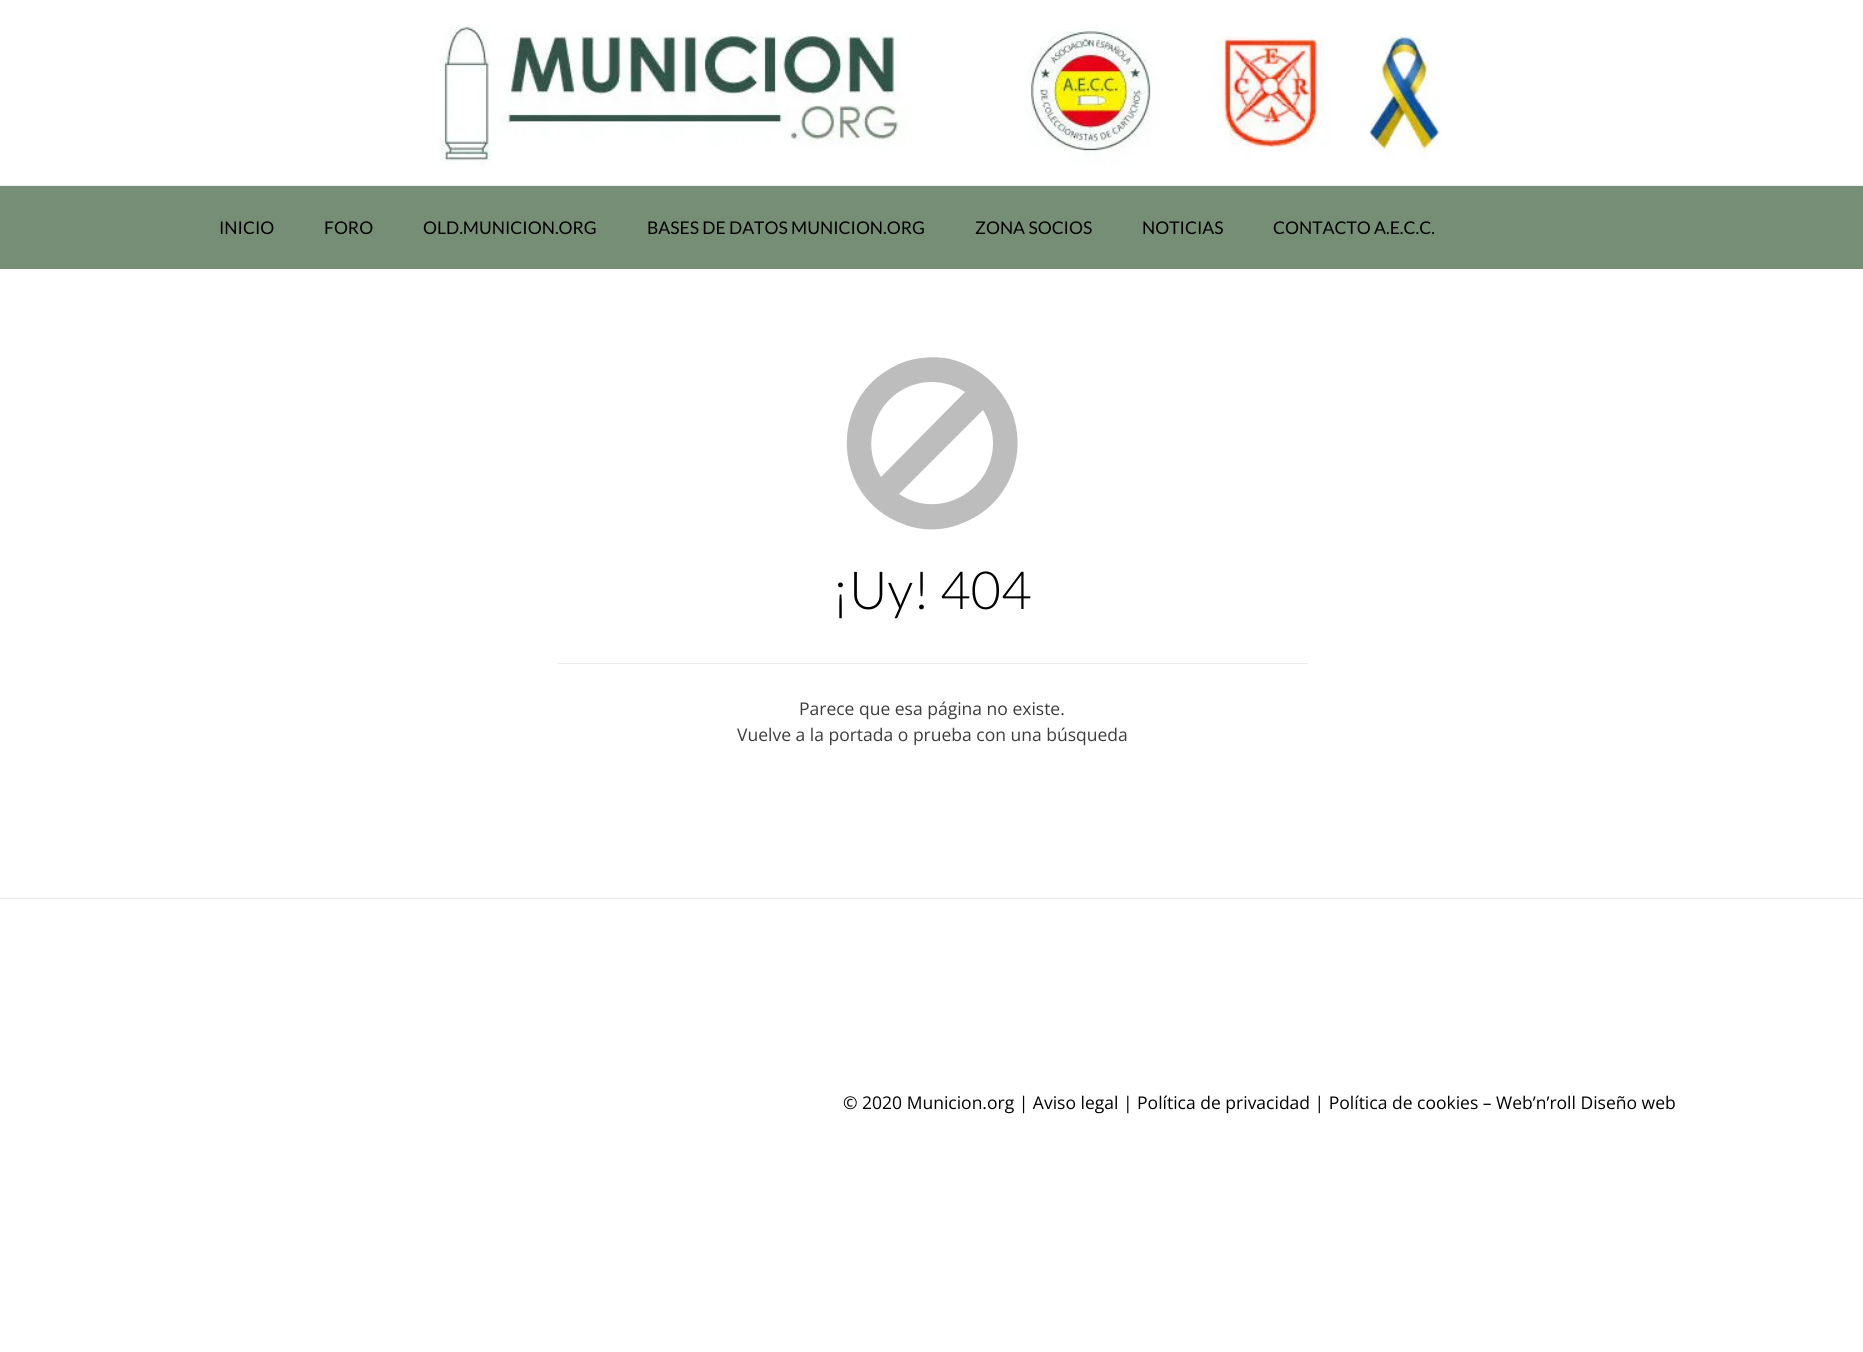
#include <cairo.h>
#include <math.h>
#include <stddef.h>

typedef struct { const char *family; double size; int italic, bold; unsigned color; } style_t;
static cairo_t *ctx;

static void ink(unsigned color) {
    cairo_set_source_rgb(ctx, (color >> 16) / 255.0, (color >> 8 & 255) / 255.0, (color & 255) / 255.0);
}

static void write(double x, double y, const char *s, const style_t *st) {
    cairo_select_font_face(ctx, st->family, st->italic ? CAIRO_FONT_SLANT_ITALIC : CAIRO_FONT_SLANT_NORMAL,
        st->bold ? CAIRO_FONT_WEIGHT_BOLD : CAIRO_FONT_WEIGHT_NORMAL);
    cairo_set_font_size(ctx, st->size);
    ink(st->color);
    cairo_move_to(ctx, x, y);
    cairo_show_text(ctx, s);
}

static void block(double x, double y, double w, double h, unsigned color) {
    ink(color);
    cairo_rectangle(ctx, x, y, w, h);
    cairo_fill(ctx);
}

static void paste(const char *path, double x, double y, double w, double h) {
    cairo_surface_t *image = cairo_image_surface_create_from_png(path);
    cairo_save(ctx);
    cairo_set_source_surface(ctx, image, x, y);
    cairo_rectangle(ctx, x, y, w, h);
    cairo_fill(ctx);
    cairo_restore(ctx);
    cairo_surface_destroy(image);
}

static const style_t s1 = {"Lato", 17.5, 0, 0, 0x000000};
static const style_t s2 = {"Lato Light", 52.5, 0, 0, 0x000000};
static const style_t s3 = {"Open Sans", 17.5, 0, 0, 0x3c3c3c};
static const style_t s4 = {"Open Sans", 17.5, 0, 0, 0x000000};

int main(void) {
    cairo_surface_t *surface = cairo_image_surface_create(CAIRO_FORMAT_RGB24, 1863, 1352);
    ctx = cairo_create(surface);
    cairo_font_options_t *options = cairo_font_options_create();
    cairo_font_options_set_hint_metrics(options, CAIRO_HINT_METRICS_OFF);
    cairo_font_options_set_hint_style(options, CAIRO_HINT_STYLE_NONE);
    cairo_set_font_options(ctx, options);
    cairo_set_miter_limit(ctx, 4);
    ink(0xffffff);
    cairo_paint(ctx);
    paste("pic1.png", 439, 26, 1002, 140);
    block(0, 186, 1863, 83, 0x778e76);
    block(0, 185, 1863, 1, 0xefefef);
    write(219, 234, "INICIO", &s1);
    write(324, 234, "FORO", &s1);
    write(423, 234, "OLD.MUNICION.ORG", &s1);
    write(647, 234, "BASES DE DATOS MUNICION.ORG", &s1);
    write(975, 234, "ZONA SOCIOS", &s1);
    write(1142, 234, "NOTICIAS", &s1);
    write(1273, 234, "CONTACTO A.E.C.C.", &s1);
    ink(0xbdbdbd);
    cairo_new_path(ctx);
    cairo_move_to(ctx, 993, 443);
    cairo_curve_to(ctx, 993, 431, 989, 420, 983, 410);
    cairo_line_to(ctx, 899, 494);
    cairo_curve_to(ctx, 939, 521, 993, 491, 993, 443);
    cairo_close_path(ctx);
    cairo_move_to(ctx, 881, 477);
    cairo_line_to(ctx, 965, 392);
    cairo_curve_to(ctx, 956, 386, 944, 382, 932, 382);
    cairo_curve_to(ctx, 884, 382, 855, 436, 881, 477);
    cairo_close_path(ctx);
    cairo_move_to(ctx, 1011, 410);
    cairo_curve_to(ctx, 1029, 453, 1009, 504, 965, 522);
    cairo_curve_to(ctx, 946, 531, 923, 532, 903, 524);
    cairo_curve_to(ctx, 832, 498, 827, 399, 895, 366);
    cairo_curve_to(ctx, 910, 358, 928, 356, 945, 358);
    cairo_curve_to(ctx, 974, 363, 999, 383, 1011, 410);
    cairo_close_path(ctx);
    cairo_fill(ctx);
    block(558, 663, 750, 1, 0xebebeb);
    write(832, 609, "¡Uy! 404", &s2);
    write(799, 715, "Parece que esa página no existe.", &s3);
    write(737, 741, "Vuelve a la portada o prueba con una búsqueda", &s3);
    block(0, 898, 1863, 1, 0xe9e9e9);
    write(843, 1109, "© 2020 Municion.org | Aviso legal | Política de privacidad | Política de cookies – Web’n’roll Diseño web", &s4);
    cairo_surface_write_to_png(surface, "screenshot.png");
    cairo_font_options_destroy(options);
    cairo_destroy(ctx);
    cairo_surface_destroy(surface);
    return 0;
}
